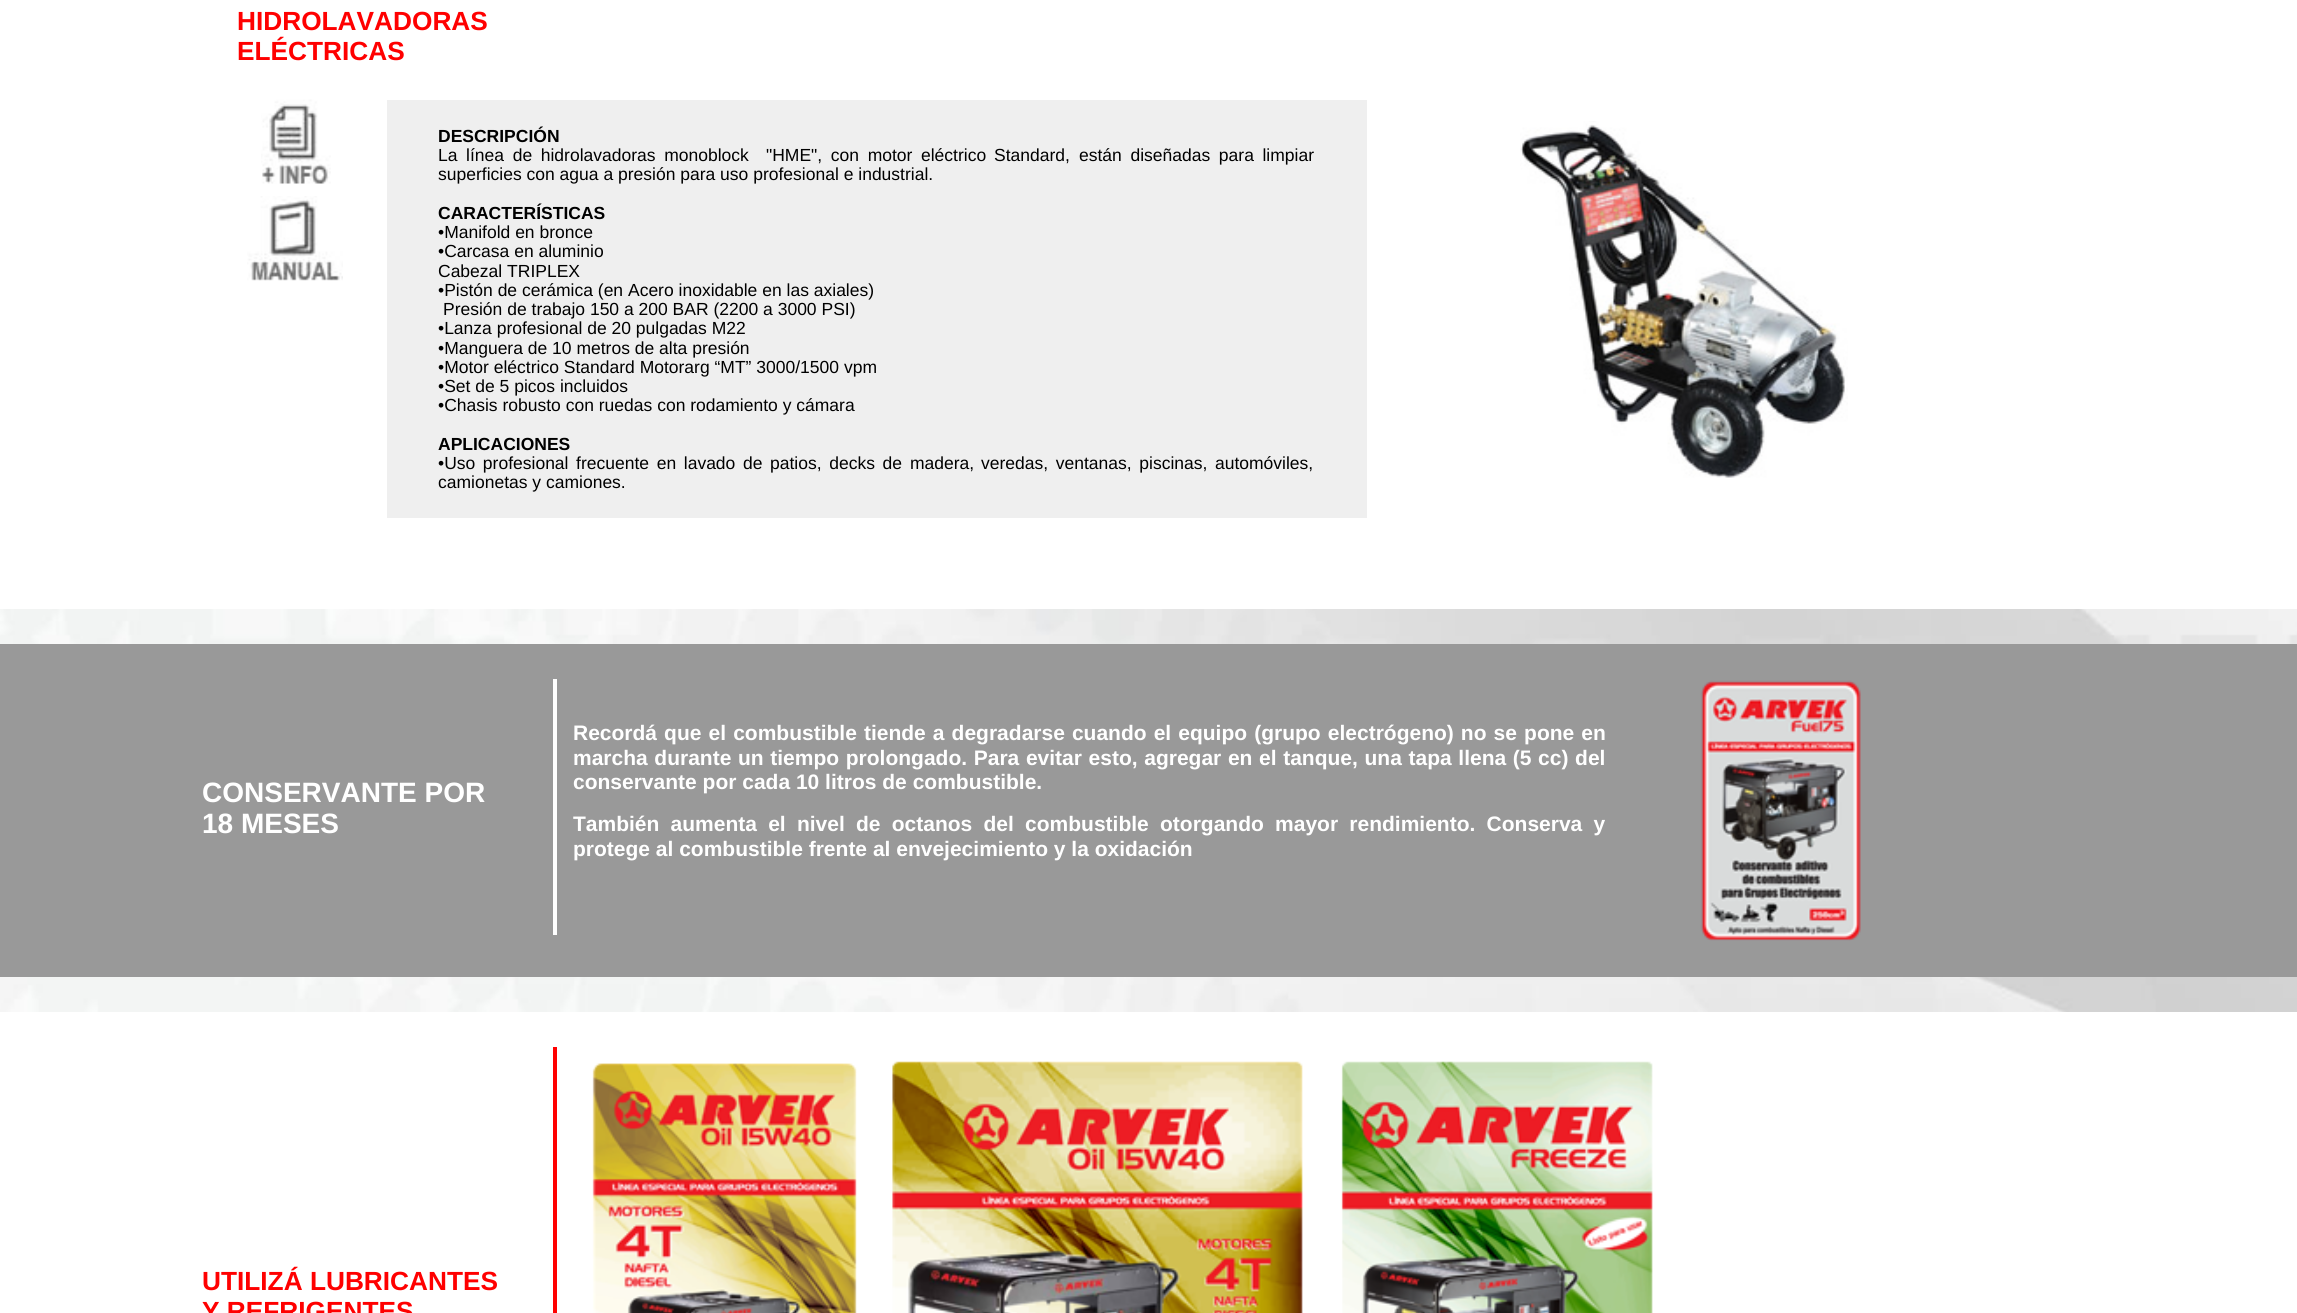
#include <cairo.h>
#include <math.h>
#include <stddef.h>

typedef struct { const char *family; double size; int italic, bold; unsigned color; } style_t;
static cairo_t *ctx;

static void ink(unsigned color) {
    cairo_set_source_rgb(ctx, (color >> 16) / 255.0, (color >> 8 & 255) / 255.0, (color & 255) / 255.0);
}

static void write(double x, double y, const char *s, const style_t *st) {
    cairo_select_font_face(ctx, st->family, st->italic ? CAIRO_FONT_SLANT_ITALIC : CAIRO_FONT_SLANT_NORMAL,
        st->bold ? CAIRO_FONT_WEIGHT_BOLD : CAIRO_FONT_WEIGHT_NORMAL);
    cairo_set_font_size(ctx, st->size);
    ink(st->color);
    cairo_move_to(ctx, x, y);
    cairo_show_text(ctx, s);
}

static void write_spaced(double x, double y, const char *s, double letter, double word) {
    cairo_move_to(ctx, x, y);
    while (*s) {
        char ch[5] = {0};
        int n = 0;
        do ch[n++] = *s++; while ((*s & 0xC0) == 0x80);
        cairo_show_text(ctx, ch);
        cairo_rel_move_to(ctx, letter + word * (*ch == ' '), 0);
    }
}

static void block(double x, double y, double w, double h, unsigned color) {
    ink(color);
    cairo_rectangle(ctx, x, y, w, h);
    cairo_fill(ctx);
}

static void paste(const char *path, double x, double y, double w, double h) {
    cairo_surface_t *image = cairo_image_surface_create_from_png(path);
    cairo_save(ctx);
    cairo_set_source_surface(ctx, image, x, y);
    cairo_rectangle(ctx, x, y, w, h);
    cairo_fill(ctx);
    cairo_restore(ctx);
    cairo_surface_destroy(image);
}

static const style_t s1 = {"Liberation Sans", 26.25, 0, 1, 0xff0000};
static const style_t s2 = {"Liberation Sans", 17.5, 0, 1, 0x000000};
static const style_t s3 = {"Liberation Sans", 17.5, 0, 0, 0x000000};
static const style_t s4 = {"Liberation Sans", 28, 0, 1, 0xffffff};
static const style_t s5 = {"Liberation Sans", 21, 0, 1, 0xffffff};

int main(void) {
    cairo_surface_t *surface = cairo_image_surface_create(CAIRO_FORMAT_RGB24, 2297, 1313);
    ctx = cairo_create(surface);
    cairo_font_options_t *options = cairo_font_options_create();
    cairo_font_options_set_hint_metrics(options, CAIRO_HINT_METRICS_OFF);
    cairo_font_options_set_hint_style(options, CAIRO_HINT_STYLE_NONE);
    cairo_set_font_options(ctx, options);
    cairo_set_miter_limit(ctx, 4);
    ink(0xffffff);
    cairo_paint(ctx);
    paste("pic1.png", 0, 609, 2297, 403);
    write(237, 30, "HIDROLAVADORAS", &s1);
    write(237, 60, "ELÉCTRICAS", &s1);
    paste("pic2.png", 261, 99, 70, 85);
    paste("pic3.png", 247, 196, 96, 85);
    block(387, 100, 980, 418, 0xefefef);
    write(438, 142, "DESCRIPCIÓN", &s2);
    cairo_select_font_face(ctx, "Liberation Sans", CAIRO_FONT_SLANT_NORMAL, CAIRO_FONT_WEIGHT_NORMAL);
    write_spaced(438, 161, "La línea de hidrolavadoras monoblock  \"HME\", con motor eléctrico", 0, 3.75);
    write(994, 161, "Standard,", &s3);
    write_spaced(1079, 161, "están diseñadas para limpiar", 0, 3.75);
    write(438, 180, "superficies con agua a presión para uso profesional e industrial.", &s3);
    write(438, 219, "CARACTERÍSTICAS", &s2);
    write(438, 238, "•Manifold en bronce", &s3);
    write(438, 257, "•Carcasa en aluminio", &s3);
    write(438, 277, "Cabezal TRIPLEX", &s3);
    write(438, 296, "•Pistón de cerámica (en Acero inoxidable en las axiales)", &s3);
    write(443, 315, "Presión de trabajo 150 a 200 BAR (2200 a 3000 PSI)", &s3);
    write(438, 334, "•Lanza profesional de 20 pulgadas M22", &s3);
    write(438, 354, "•Manguera de 10 metros de alta presión", &s3);
    write(438, 373, "•Motor eléctrico Standard Motorarg “MT” 3000/1500 vpm", &s3);
    write(438, 392, "•Set de 5 picos incluidos", &s3);
    write(438, 411, "•Chasis robusto con ruedas con rodamiento y cámara", &s3);
    write(438, 450, "APLICACIONES", &s2);
    cairo_select_font_face(ctx, "Liberation Sans", CAIRO_FONT_SLANT_NORMAL, CAIRO_FONT_WEIGHT_NORMAL);
    write_spaced(438, 469, "•Uso profesional frecuente en lavado de patios, decks de", 0, 2.75);
    write(910, 469, "madera,", &s3);
    write_spaced(981, 469, "veredas, ventanas, piscinas, automóviles,", 0, 2.75);
    write(438, 488, "camionetas y camiones.", &s3);
    paste("pic4.png", 1520, 121, 328, 357);
    block(0, 644, 2297, 333, 0x999999);
    block(553, 679, 4, 256, 0xffffff);
    write(202, 802, "CONSERVANTE POR", &s4);
    write(202, 833, "18 MESES", &s4);
    cairo_set_font_size(ctx, 21);
    write_spaced(573, 740, "Recordá que el combustible tiende a degradarse cuando el equipo (grupo electrógeno) no se pone en", 0, 1.25);
    write_spaced(573, 765, "marcha durante un tiempo prolongado. Para evitar esto, agregar en el tanque, una tapa llena (5 cc) del", 0, 0.8);
    write(573, 789, "conservante por cada 10 litros de combustible.", &s5);
    write_spaced(573, 831, "También aumenta el nivel de octanos del combustible otorgando mayor rendimiento. Conserva y", 0, 5.4);
    write(573, 856, "protege al combustible frente al envejecimiento y la oxidación", &s5);
    paste("pic5.png", 1700, 680, 161, 261);
    block(553, 1047, 4, 266, 0xff0000);
    write(202, 1290, "UTILIZÁ LUBRICANTES", &s1);
    write(202, 1320, "Y REFRIGENTES", &s1);
    paste("pic6.png", 592, 1061, 1061, 252);
    cairo_surface_write_to_png(surface, "screenshot.png");
    cairo_font_options_destroy(options);
    cairo_destroy(ctx);
    cairo_surface_destroy(surface);
    return 0;
}
